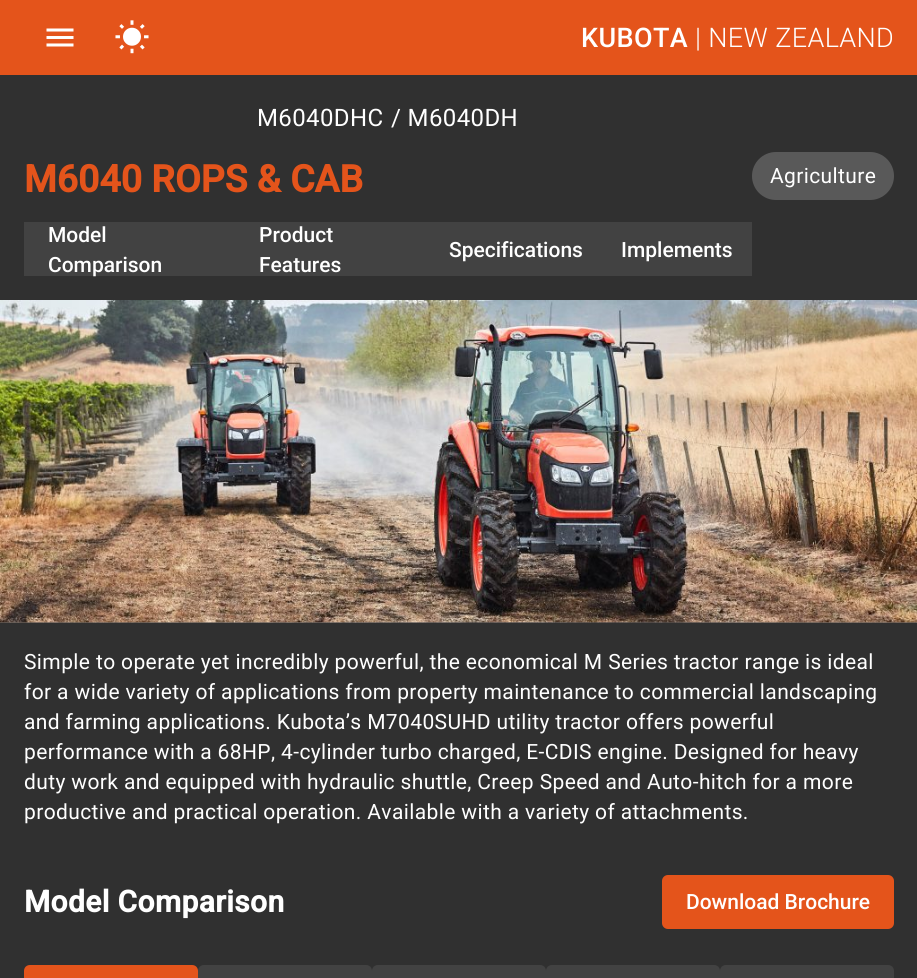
#include <cairo.h>
#include <math.h>
#include <stddef.h>

typedef struct { const char *family; double size; int italic, bold; unsigned color; } style_t;
static cairo_t *ctx;

static void ink(unsigned color) {
    cairo_set_source_rgb(ctx, (color >> 16) / 255.0, (color >> 8 & 255) / 255.0, (color & 255) / 255.0);
}

static void write(double x, double y, const char *s, const style_t *st) {
    cairo_select_font_face(ctx, st->family, st->italic ? CAIRO_FONT_SLANT_ITALIC : CAIRO_FONT_SLANT_NORMAL,
        st->bold ? CAIRO_FONT_WEIGHT_BOLD : CAIRO_FONT_WEIGHT_NORMAL);
    cairo_set_font_size(ctx, st->size);
    ink(st->color);
    cairo_move_to(ctx, x, y);
    cairo_show_text(ctx, s);
}

static void write_spaced(double x, double y, const char *s, double letter, double word) {
    cairo_move_to(ctx, x, y);
    while (*s) {
        char ch[5] = {0};
        int n = 0;
        do ch[n++] = *s++; while ((*s & 0xC0) == 0x80);
        cairo_show_text(ctx, ch);
        cairo_rel_move_to(ctx, letter + word * (*ch == ' '), 0);
    }
}

static void block(double x, double y, double w, double h, unsigned color) {
    ink(color);
    cairo_rectangle(ctx, x, y, w, h);
    cairo_fill(ctx);
}

static void round_path(double x, double y, double w, double h, double r) {
    cairo_new_sub_path(ctx);
    cairo_arc(ctx, x + w - r, y + h - r, r, 0, M_PI / 2);
    cairo_arc(ctx, x + r, y + h - r, r, M_PI / 2, M_PI);
    cairo_arc(ctx, x + r, y + r, r, M_PI, 1.5 * M_PI);
    cairo_arc(ctx, x + w - r, y + r, r, 1.5 * M_PI, 2 * M_PI);
    cairo_close_path(ctx);
}

static void paste(const char *path, double x, double y, double w, double h) {
    cairo_surface_t *image = cairo_image_surface_create_from_png(path);
    cairo_save(ctx);
    cairo_set_source_surface(ctx, image, x, y);
    cairo_rectangle(ctx, x, y, w, h);
    cairo_fill(ctx);
    cairo_restore(ctx);
    cairo_surface_destroy(image);
}

static const style_t s1 = {"Roboto", 37.5, 0, 1, 0xe4541b};
static const style_t s2 = {"Roboto Medium", 21, 0, 0, 0xffffff};

int main(void) {
    cairo_surface_t *surface = cairo_image_surface_create(CAIRO_FORMAT_RGB24, 917, 978);
    ctx = cairo_create(surface);
    cairo_font_options_t *options = cairo_font_options_create();
    cairo_font_options_set_hint_metrics(options, CAIRO_HINT_METRICS_OFF);
    cairo_font_options_set_hint_style(options, CAIRO_HINT_STYLE_NONE);
    cairo_set_font_options(ctx, options);
    cairo_set_miter_limit(ctx, 4);
    ink(0x303030);
    cairo_paint(ctx);
    block(0, 0, 917, 75, 0xe4541b);
    paste("pic1.png", 46, 28, 28, 19);
    paste("pic2.png", 115, 20, 34, 34);
    cairo_select_font_face(ctx, "Roboto Medium", CAIRO_FONT_SLANT_NORMAL, CAIRO_FONT_WEIGHT_NORMAL);
    cairo_set_font_size(ctx, 27);
    ink(0xffffff);
    write_spaced(581, 47, "KUBOTA", 0.38, 0);
    cairo_select_font_face(ctx, "Roboto Light", CAIRO_FONT_SLANT_NORMAL, CAIRO_FONT_WEIGHT_NORMAL);
    write_spaced(695, 47, "| NEW ZEALAND", 0.38, 0);
    cairo_select_font_face(ctx, "Roboto", CAIRO_FONT_SLANT_NORMAL, CAIRO_FONT_WEIGHT_NORMAL);
    cairo_set_font_size(ctx, 24);
    write_spaced(257, 126, "M6040DHC", 0.38, 0);
    write_spaced(391, 126, "/ M6040DH", 0.38, 0);
    write(24, 192, "M6040 ROPS & CAB", &s1);
    block(24, 222, 728, 54, 0x424242);
    write(48, 242, "Model", &s2);
    write(48, 272, "Comparison", &s2);
    write(259, 242, "Product", &s2);
    write(259, 272, "Features", &s2);
    write(449, 257, "Specifications", &s2);
    write(621, 257, "Implements", &s2);
    ink(0x595959);
    round_path(752, 152, 142, 48, 24);
    cairo_fill(ctx);
    cairo_select_font_face(ctx, "Roboto", CAIRO_FONT_SLANT_NORMAL, CAIRO_FONT_WEIGHT_NORMAL);
    ink(0xffffff);
    write_spaced(770, 183, "Agriculture", 0.38, 0);
    block(0, 622, 917, 1, 0x5c5c5c);
    paste("pic4.png", 0, 622, 917, 1);
    paste("pic3.png", 0, 300, 917, 323);
    ink(0xffffff);
    write_spaced(24, 669, "Simple to operate yet incredibly powerful, the economical M Series tractor range is ideal", 0.38, 0);
    write_spaced(24, 699, "for a wide variety of applications from property maintenance to commercial landscaping", 0.38, 0);
    write_spaced(24, 729, "and farming applications. Kubota’s M7040SUHD utility tractor offers powerful", 0.38, 0);
    write_spaced(24, 759, "performance with a 68HP, 4-cylinder turbo charged, E-CDIS engine. Designed for heavy", 0.38, 0);
    write_spaced(24, 789, "duty work and equipped with hydraulic shuttle, Creep Speed and Auto-hitch for a more", 0.38, 0);
    write_spaced(24, 819, "productive and practical operation. Available with a variety of attachments.", 0.38, 0);
    cairo_select_font_face(ctx, "Roboto", CAIRO_FONT_SLANT_NORMAL, CAIRO_FONT_WEIGHT_BOLD);
    cairo_set_font_size(ctx, 30);
    write_spaced(24, 912, "Model Comparison", 0.38, 0);
    ink(0xe4541b);
    round_path(662, 875, 232, 54, 6);
    cairo_fill(ctx);
    write(686, 909, "Download Brochure", &s2);
    ink(0xe4541b);
    cairo_new_path(ctx);
    cairo_move_to(ctx, 30, 965);
    cairo_line_to(ctx, 192, 965);
    cairo_curve_to(ctx, 195.5, 965, 198, 967.5, 198, 971);
    cairo_line_to(ctx, 198, 978);
    cairo_line_to(ctx, 24, 978);
    cairo_line_to(ctx, 24, 971);
    cairo_curve_to(ctx, 24, 967.5, 26.5, 965, 30, 965);
    cairo_close_path(ctx);
    cairo_fill(ctx);
    ink(0x424242);
    cairo_new_path(ctx);
    cairo_move_to(ctx, 204, 965);
    cairo_line_to(ctx, 366, 965);
    cairo_curve_to(ctx, 369.5, 965, 372, 967.5, 372, 971);
    cairo_line_to(ctx, 372, 978);
    cairo_line_to(ctx, 198, 978);
    cairo_line_to(ctx, 198, 971);
    cairo_curve_to(ctx, 198, 967.5, 200.5, 965, 204, 965);
    cairo_close_path(ctx);
    cairo_fill(ctx);
    cairo_new_path(ctx);
    cairo_move_to(ctx, 378, 965);
    cairo_line_to(ctx, 540, 965);
    cairo_curve_to(ctx, 543.5, 965, 546, 967.5, 546, 971);
    cairo_line_to(ctx, 546, 978);
    cairo_line_to(ctx, 372, 978);
    cairo_line_to(ctx, 372, 971);
    cairo_curve_to(ctx, 372, 967.5, 374.5, 965, 378, 965);
    cairo_close_path(ctx);
    cairo_fill(ctx);
    cairo_new_path(ctx);
    cairo_move_to(ctx, 552, 965);
    cairo_line_to(ctx, 714, 965);
    cairo_curve_to(ctx, 717.5, 965, 720, 967.5, 720, 971);
    cairo_line_to(ctx, 720, 978);
    cairo_line_to(ctx, 546, 978);
    cairo_line_to(ctx, 546, 971);
    cairo_curve_to(ctx, 546, 967.5, 548.5, 965, 552, 965);
    cairo_close_path(ctx);
    cairo_fill(ctx);
    cairo_new_path(ctx);
    cairo_move_to(ctx, 726, 965);
    cairo_line_to(ctx, 888, 965);
    cairo_curve_to(ctx, 891.5, 965, 894, 967.5, 894, 971);
    cairo_line_to(ctx, 894, 978);
    cairo_line_to(ctx, 720, 978);
    cairo_line_to(ctx, 720, 971);
    cairo_curve_to(ctx, 720, 967.5, 722.5, 965, 726, 965);
    cairo_close_path(ctx);
    cairo_fill(ctx);
    cairo_surface_write_to_png(surface, "screenshot.png");
    cairo_font_options_destroy(options);
    cairo_destroy(ctx);
    cairo_surface_destroy(surface);
    return 0;
}
